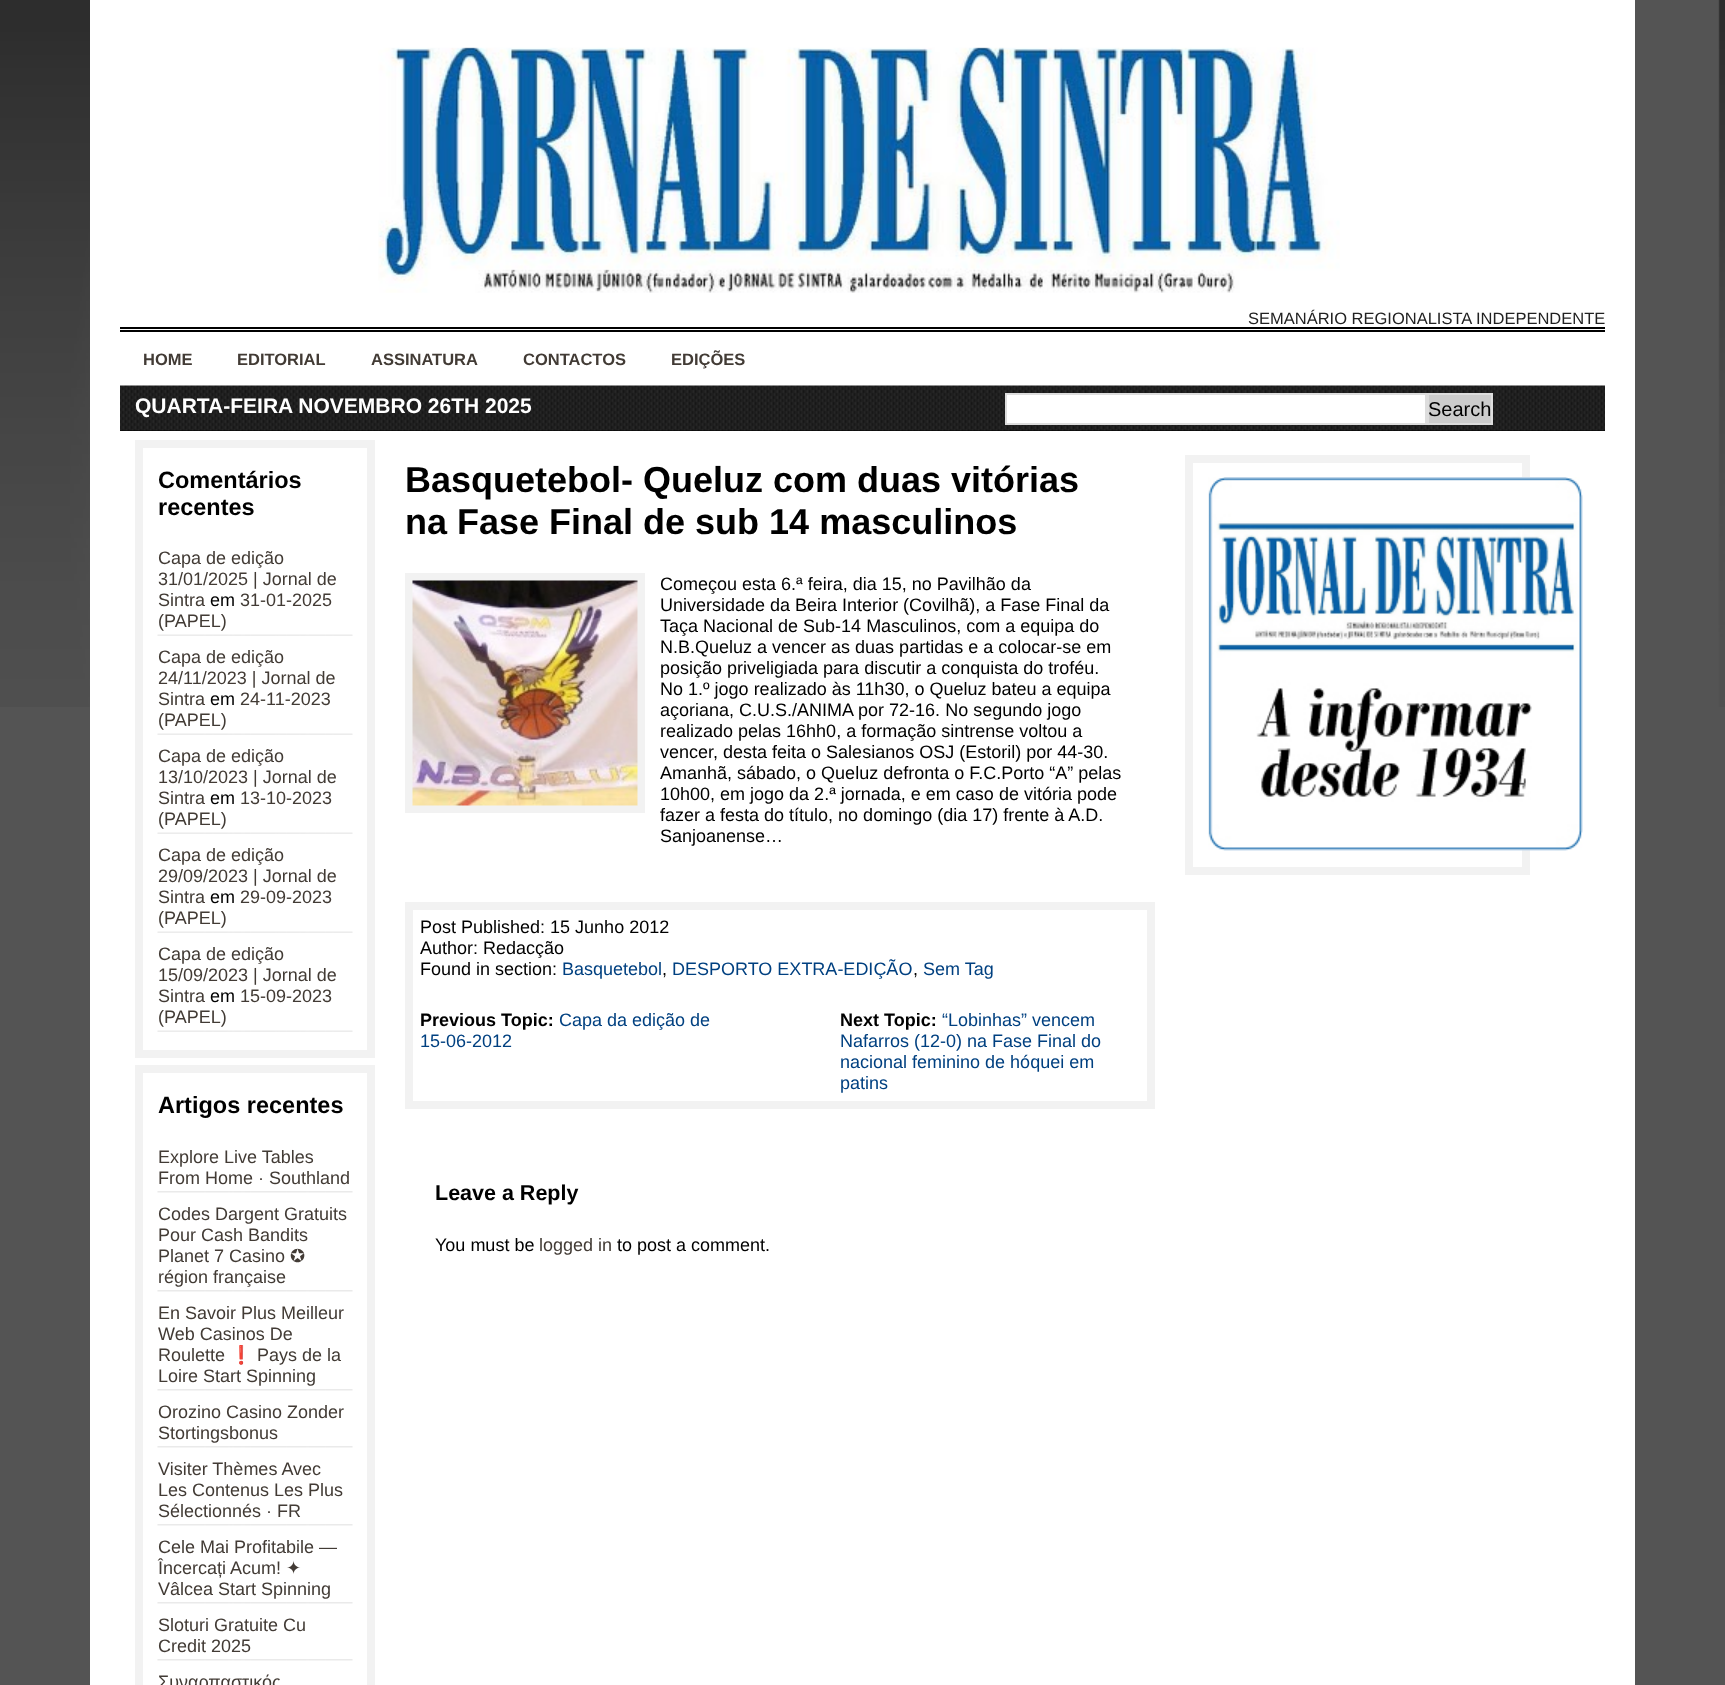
(async () => {
const canvas = document.querySelector("canvas")
canvas.width = 1725
canvas.height = 1685
const c = canvas.getContext("2d")
c.miterLimit = 4
c.fontKerning = "normal"
function T(s,x,y){c.fillText(s,x,y)}
function R(x,y,w,h){c.fillRect(x,y,w,h)}
async function I(src,x,y,w,h){const img=new Image();img.src=src;await img.decode();c.drawImage(img,x,y,w,h)}
c.fillStyle="#545454"
R(0,0,1725,1685)
await I("1.png",0,0,1725,707)
c.fillStyle="#fff"
R(90,0,1545,1685)
await I("2.png",378,47,962,246)
c.font="16.5px Liberation Sans"
c.fillStyle="#212121"
T("SEMANÁRIO REGIONALISTA INDEPENDENTE",1248,324)
c.fillStyle="#000"
R(120,327,1485,2)
R(120,330,1485,2)
c.font="bold 16.5px Liberation Sans"
c.fillStyle="#423b35"
T("HOME",143,365)
T("EDITORIAL",237,365)
T("ASSINATURA",371,365)
T("CONTACTOS",523,365)
T("EDIÇÕES",671,365)
c.fillStyle="#000"
R(120,430,1485,1)
await I("3.png",120,385,1485,46)
c.font="bold 21px Liberation Sans"
c.fillStyle="#fff"
T("QUARTA-FEIRA NOVEMBRO 26TH 2025",135,413)
c.beginPath()
c.rect(1006,394,420,30)
c.fill()
c.strokeStyle="#ddd"
c.lineWidth=2
c.stroke()
c.fillStyle="#ccc"
c.beginPath()
c.rect(1428,394,64,30)
c.fill()
c.stroke()
c.font="20px Liberation Sans"
c.fillStyle="#000"
T("Search",1428,416)
c.strokeStyle="#f2f2f2"
c.lineWidth=8
c.strokeRect(139,444,232,610)
c.font="bold 23.5px Liberation Sans"
T("Comentários",158,488)
T("recentes",158,515)
await I("4.png",157,634,196,2)
c.font="18px Liberation Sans"
c.fillStyle="#423b35"
T("Capa de edição",158,564)
T("31/01/2025 | Jornal de",158,585)
T("Sintra",158,606)
c.fillStyle="#000"
T("em",210,606)
c.fillStyle="#423b35"
T("31-01-2025",240,606)
T("(PAPEL)",158,627)
await I("4.png",157,733,196,2)
T("Capa de edição",158,663)
T("24/11/2023 | Jornal de",158,684)
T("Sintra",158,705)
c.fillStyle="#000"
T("em",210,705)
c.fillStyle="#423b35"
T("24-11-2023",240,705)
T("(PAPEL)",158,726)
await I("4.png",157,832,196,2)
T("Capa de edição",158,762)
T("13/10/2023 | Jornal de",158,783)
T("Sintra",158,804)
c.fillStyle="#000"
T("em",210,804)
c.fillStyle="#423b35"
T("13-10-2023",240,804)
T("(PAPEL)",158,825)
await I("4.png",157,931,196,2)
T("Capa de edição",158,861)
T("29/09/2023 | Jornal de",158,882)
T("Sintra",158,903)
c.fillStyle="#000"
T("em",210,903)
c.fillStyle="#423b35"
T("29-09-2023",240,903)
T("(PAPEL)",158,924)
await I("4.png",157,1030,196,2)
T("Capa de edição",158,960)
T("15/09/2023 | Jornal de",158,981)
T("Sintra",158,1002)
c.fillStyle="#000"
T("em",210,1002)
c.fillStyle="#423b35"
T("15-09-2023",240,1002)
T("(PAPEL)",158,1023)
c.strokeRect(139,1069,232,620)
c.font="bold 23.5px Liberation Sans"
c.fillStyle="#000"
T("Artigos recentes",158,1113)
await I("5.png",157,1191,196,2)
c.font="18px Liberation Sans"
c.fillStyle="#423b35"
T("Explore Live Tables",158,1163)
T("From Home · Southland",158,1184)
await I("5.png",157,1290,196,2)
T("Codes Dargent Gratuits",158,1220)
T("Pour Cash Bandits",158,1241)
T("Planet 7 Casino",158,1262)
c.font="18px DejaVu Sans"
T("✪",290,1262)
c.font="18px Liberation Sans"
T("région française",158,1283)
await I("5.png",157,1389,196,2)
T("En Savoir Plus Meilleur",158,1319)
T("Web Casinos De",158,1340)
T("Roulette",158,1361)
c.font="18px Noto Color Emoji"
T("❗️",230,1361)
c.font="18px Liberation Sans"
T("Pays de la",257,1361)
T("Loire Start Spinning",158,1382)
await I("5.png",157,1446,196,2)
T("Orozino Casino Zonder",158,1418)
T("Stortingsbonus",158,1439)
await I("5.png",157,1524,196,2)
T("Visiter Thèmes Avec",158,1475)
T("Les Contenus Les Plus",158,1496)
T("Sélectionnés · FR",158,1517)
await I("5.png",157,1602,196,2)
T("Cele Mai Profitabile —",158,1553)
T("Încercați Acum!",158,1574)
c.font="18px DejaVu Sans"
T("✦",286,1574)
c.font="18px Liberation Sans"
T("Vâlcea Start Spinning",158,1595)
await I("5.png",157,1659,196,2)
T("Sloturi Gratuite Cu",158,1631)
T("Credit 2025",158,1652)
T("Συναρπαστικός",158,1688)
c.font="bold 36px Liberation Sans"
c.fillStyle="#000"
T("Basquetebol- Queluz com duas vitórias",405,492)
T("na Fase Final de sub 14 masculinos",405,534)
c.fillStyle="#f2f2f2"
R(405,573,240,240)
await I("6.png",412,580,226,226)
c.font="18px Liberation Sans"
c.fillStyle="#000"
T("Começou esta 6.ª feira, dia 15, no Pavilhão da",660,590)
T("Universidade da Beira Interior (Covilhã), a Fase Final da",660,611)
T("Taça Nacional de Sub-14 Masculinos, com a equipa do",660,632)
T("N.B.Queluz a vencer as duas partidas e a colocar-se em",660,653)
T("posição priveligiada para discutir a conquista do troféu.",660,674)
T("No 1.º jogo realizado às 11h30, o Queluz bateu a equipa",660,695)
T("açoriana, C.U.S./ANIMA por 72-16. No segundo jogo",660,716)
T("realizado pelas 16hh0, a formação sintrense voltou a",660,737)
T("vencer, desta feita o Salesianos OSJ (Estoril) por 44-30.",660,758)
T("Amanhã, sábado, o Queluz defronta o F.C.Porto “A” pelas",660,779)
T("10h00, em jogo da 2.ª jornada, e em caso de vitória pode",660,800)
T("fazer a festa do título, no domingo (dia 17) frente à A.D.",660,821)
T("Sanjoanense…",660,842)
c.strokeRect(409,906,742,199)
T("Post Published: 15 Junho 2012",420,933)
T("Author: Redacção",420,954)
T("Found in section:",420,975)
c.fillStyle="#004080"
T("Basquetebol",562,975)
c.fillStyle="#000"
T(",",662,975)
c.fillStyle="#004080"
T("DESPORTO EXTRA-EDIÇÃO",672,975)
c.fillStyle="#000"
T(",",913,975)
c.fillStyle="#004080"
T("Sem Tag",923,975)
c.font="bold 18px Liberation Sans"
c.fillStyle="#000"
T("Previous Topic:",420,1026)
c.font="18px Liberation Sans"
c.fillStyle="#004080"
T("Capa da edição de",559,1026)
T("15-06-2012",420,1047)
c.font="bold 18px Liberation Sans"
c.fillStyle="#000"
T("Next Topic:",840,1026)
c.font="18px Liberation Sans"
c.fillStyle="#004080"
T("“Lobinhas” vencem",942,1026)
T("Nafarros (12-0) na Fase Final do",840,1047)
T("nacional feminino de hóquei em",840,1068)
T("patins",840,1089)
c.font="bold 21.5px Liberation Sans"
c.fillStyle="#000"
T("Leave a Reply",435,1200)
c.font="18px Liberation Sans"
T("You must be",435,1251)
c.fillStyle="#423b35"
T("logged in",539,1251)
c.fillStyle="#000"
T("to post a comment.",617,1251)
c.strokeRect(1189,459,337,412)
await I("7.png",1208,477,375,374)
})()
